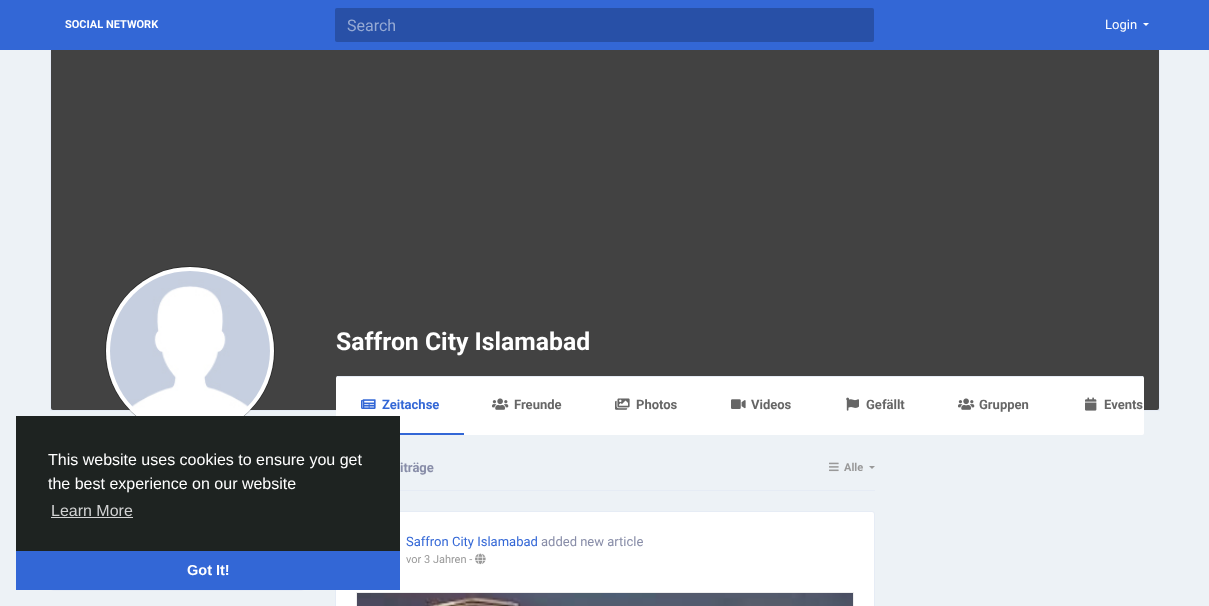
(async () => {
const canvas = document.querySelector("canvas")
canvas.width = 1209
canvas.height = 606
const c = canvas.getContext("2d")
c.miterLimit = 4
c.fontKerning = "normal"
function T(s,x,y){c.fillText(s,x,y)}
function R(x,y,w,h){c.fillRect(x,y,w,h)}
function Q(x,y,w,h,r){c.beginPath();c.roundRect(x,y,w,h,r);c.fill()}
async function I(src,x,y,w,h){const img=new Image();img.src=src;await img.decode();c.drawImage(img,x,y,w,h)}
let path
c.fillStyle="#edf2f6"
R(0,0,1209,606)
c.fillStyle="#3367d6"
R(0,0,1209,50)
c.font="bold 11px Roboto"
c.fillStyle="#fff"
T("SOCIAL NETWORK",65,28)
c.fillStyle="#2850a7"
Q(335,8,539,34,2)
c.font="16px Roboto"
c.fillStyle="#96aad4"
T("Search",347,31)
c.font="13px Roboto"
c.fillStyle="#fff"
T("Login",1105,29)
path = new Path2D("M1143 23h6l-3 3z")
c.fill(path)
c.fillStyle="#e6ecf5"
R(1159,50,1,361)
R(50,410,1110,1)
R(50,50,1,361)
c.fillStyle="#424242"
c.beginPath()
c.roundRect(51,50,1108,360,[0,0,2,2])
c.fill()
c.beginPath()
c.arc(190,351,84.5,0,7)
c.strokeStyle="#0000004d"
c.stroke()
c.fillStyle="#fff"
c.beginPath()
c.arc(190,351,84,0,7)
c.fill()
await I("1.png",110,271,160,145)
c.font="bold 24.75px Roboto"
T("Saffron City Islamabad",336,350)
Q(336,376,808,59,2)
c.fillStyle="#e6ecf5"
R(337,376,806,1)
c.fillStyle="#3367d6"
R(400,433,64,2)
await I("2.png",361,399,15,10)
c.font="bold 13px Roboto"
T("Zeitachse",382,409)
await I("3.png",492,398,17,12)
c.fillStyle="#666"
T("Freunde",514,409)
await I("4.png",615,398,15,12)
T("Photos",636,409)
await I("5.png",731,399,15,10)
T("Videos",751,409)
await I("6.png",846,397,13,14)
T("Gefällt",866,409)
await I("3.png",958,398,17,12)
T("Gruppen",979,409)
await I("7.png",1085,397,12,14)
T("Events",1104,409)
c.beginPath()
c.roundRect(50.5,451.5,254,139,3.5)
c.strokeStyle="#e6ecf5"
c.stroke()
c.fillStyle="#e6ecf5"
R(400,490,475,1)
c.fillStyle="#888da8"
T("iträge",400,472)
await I("8.png",829,462,10,10)
c.font="bold 11px Roboto"
c.fillStyle="#999"
T("Alle",844,471)
path = new Path2D("M869 466h6l-3 3z")
c.fill(path)
c.fillStyle="#fff"
c.beginPath()
c.roundRect(335.5,511.5,539,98,2.5)
c.fill()
c.stroke()
c.font="13px Roboto"
c.fillStyle="#3367d6"
T("Saffron City Islamabad",406,546)
c.fillStyle="#888da8"
T("added new article",541,546)
c.font="11px Roboto"
c.fillStyle="#999"
T("vor 3 Jahren -",406,563)
await I("9.png",475,553,11,12)
c.strokeStyle="#eee"
c.strokeRect(356.5,592.5,497,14)
await I("10.png",357,593,496,13)
c.fillStyle="#1e2321"
R(16,416,384,135)
c.font="16px Liberation Sans"
c.fillStyle="#fff"
T("This website uses cookies to ensure you get",48,465)
T("the best experience on our website",48,489)
c.fillStyle="#d2d3d3"
T("Learn More",51,516)
R(51,517,82,1)
c.fillStyle="#3367d6"
R(16,551,384,39)
c.font="bold 14.5px Liberation Sans"
c.fillStyle="#fff"
T("Got It!",187,575)
})()
